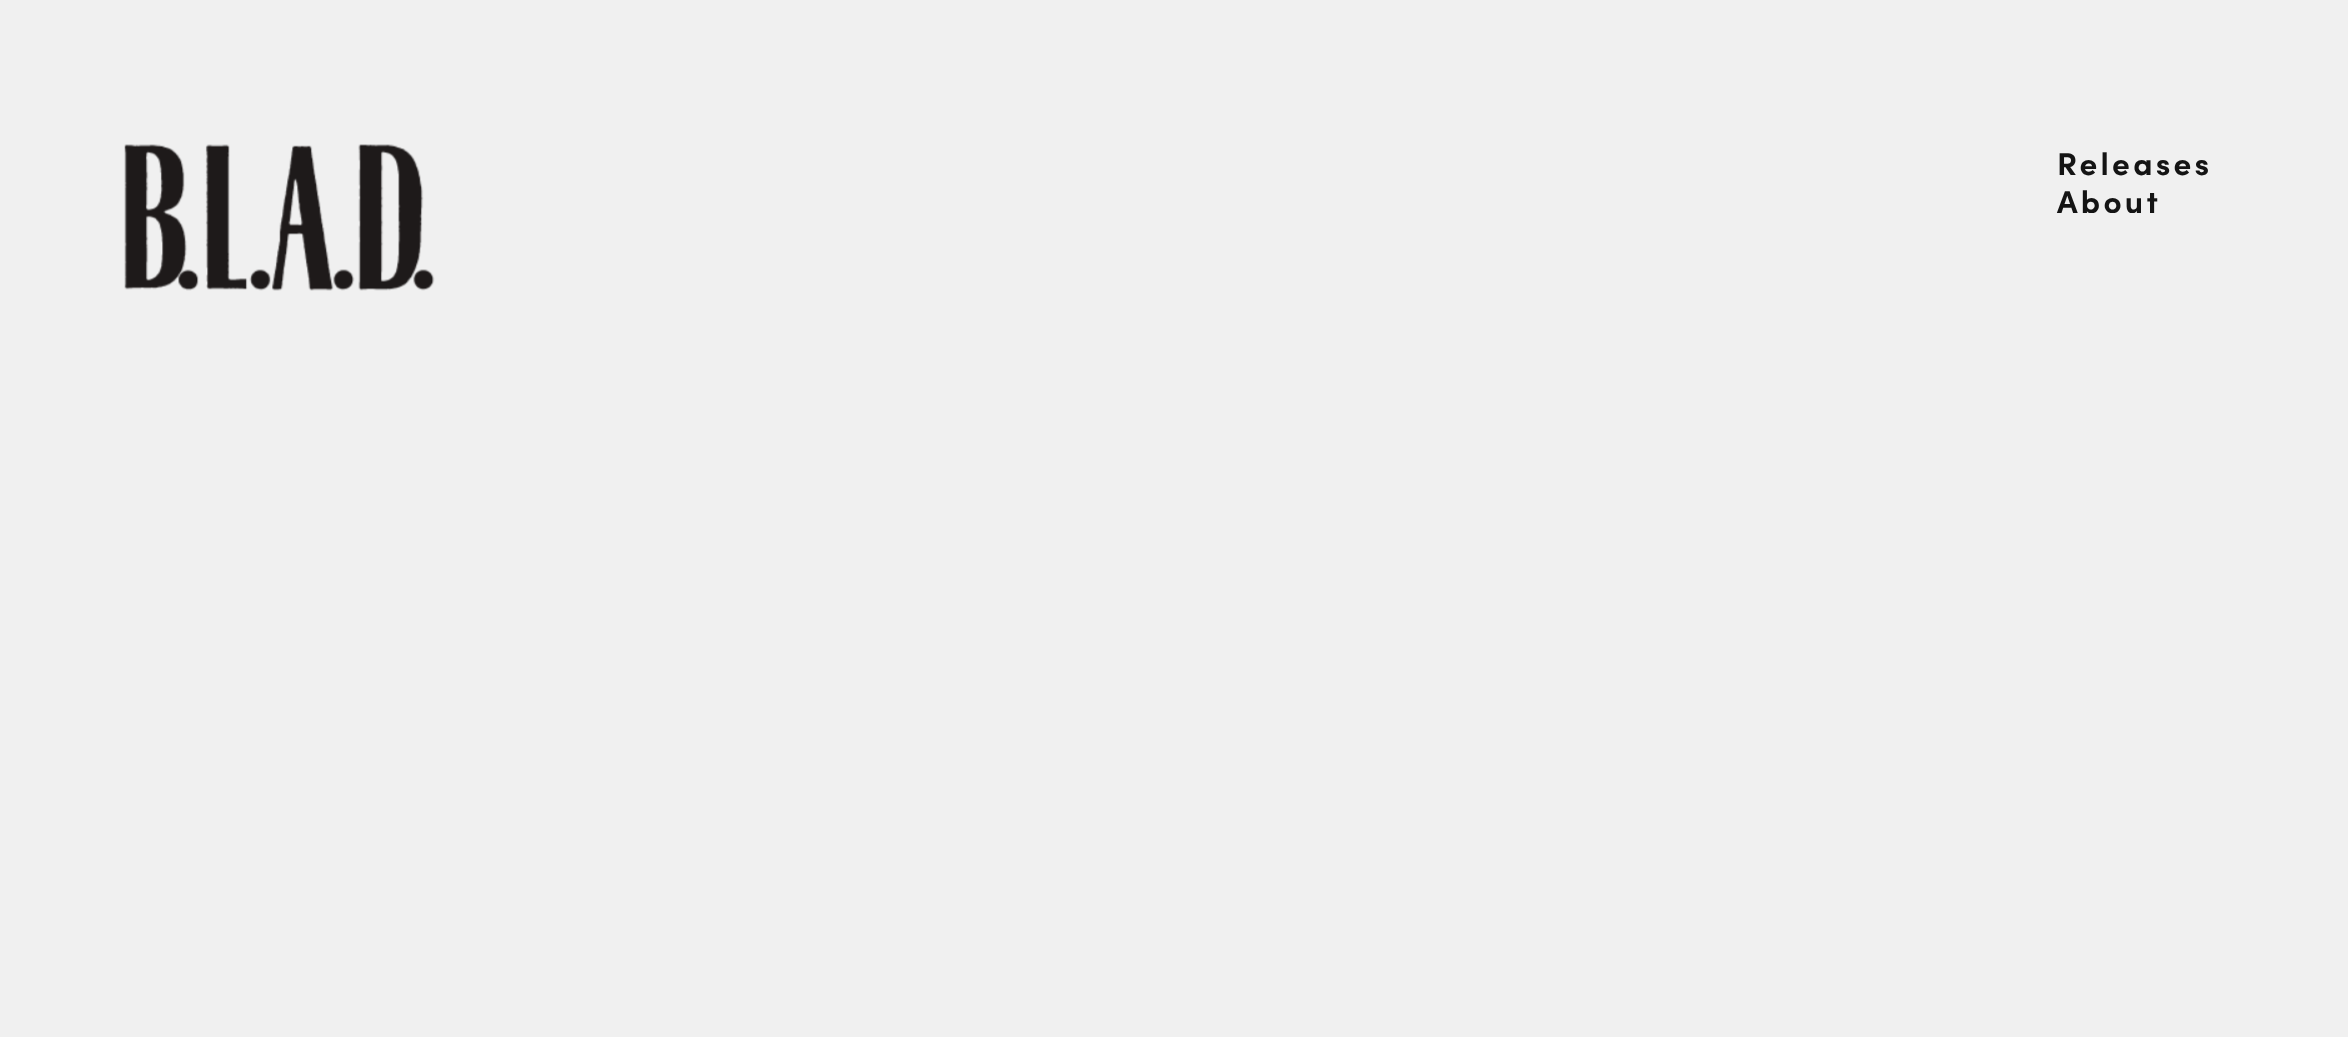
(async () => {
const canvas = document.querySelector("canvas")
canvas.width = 2348
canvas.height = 1037
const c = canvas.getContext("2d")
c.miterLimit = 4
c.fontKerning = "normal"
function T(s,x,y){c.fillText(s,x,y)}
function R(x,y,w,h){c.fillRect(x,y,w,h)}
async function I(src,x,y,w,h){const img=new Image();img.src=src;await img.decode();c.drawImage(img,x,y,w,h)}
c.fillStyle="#f0f0f0"
R(0,0,2348,1037)
await I("1.png",124,144,311,147)
c.letterSpacing="3.25px"
c.font="bold 31.5px Sofia"
c.fillStyle="#141414"
T("Releases",2057,175)
c.save()
c.beginPath()
c.rect(2040,138,191,75)
c.clip()
T("About",2057,213)
c.restore()
})()
